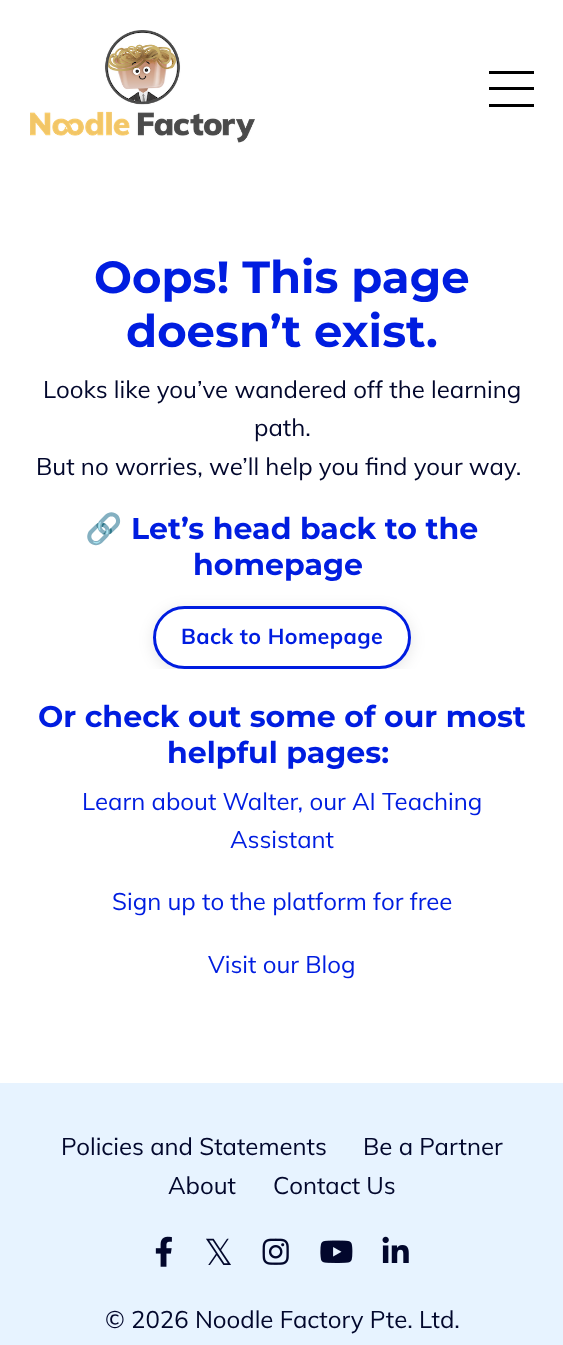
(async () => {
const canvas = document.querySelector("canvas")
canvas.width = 563
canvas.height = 1345
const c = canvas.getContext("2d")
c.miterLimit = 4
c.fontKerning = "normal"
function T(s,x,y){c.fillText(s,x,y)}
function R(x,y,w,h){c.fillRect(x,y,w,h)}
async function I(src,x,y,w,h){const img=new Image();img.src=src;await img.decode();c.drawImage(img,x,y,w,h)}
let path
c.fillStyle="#fff"
R(0,0,563,1345)
await I("1.png",30,30,225,113)
c.fillStyle="#000"
R(489,71,45,3)
R(489,87,45,3)
R(489,104,45,3)
c.font="bold 45px Montserrat"
c.fillStyle="#001de0"
T("Oops! This page",94,293)
T("doesn’t exist.",126,347)
c.font="24px Muli"
c.fillStyle="#02072c"
T("Looks like you’ve wandered off the learning",43,398)
T("path.",254,436)
T("But no worries, we’ll help you find your way.",36,475)
c.font="bold 30px Noto Color Emoji"
c.fillStyle="#001de0"
T("🔗",85,539)
c.font="bold 30px Montserrat"
T("Let’s head back to the",131,539)
T("homepage",193,575)
c.save()
c.beginPath()
c.roundRect(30,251,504,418,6)
c.clip()
path = new Path2D("M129 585h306v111h-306zm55.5 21h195c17.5 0 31.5 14 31.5 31.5c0 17.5-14 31.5-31.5 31.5h-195c-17.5 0-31.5-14-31.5-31.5c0-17.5 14-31.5 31.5-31.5z")
c.clip(path,"evenodd")
c.fillStyle="#0000001a"
c.filter="blur(7.5px)"
c.beginPath()
c.roundRect(153,609,258,63,31.5)
c.fill()
c.filter="none"
c.restore()
c.beginPath()
c.roundRect(154.5,607.5,255,60,30)
c.strokeStyle="#001de0"
c.lineWidth=3
c.stroke()
c.letterSpacing="0.4px"
c.font="bold 21.5px Muli"
T("Back to Homepage",181,644)
c.letterSpacing="0px"
c.font="bold 30px Montserrat"
T("Or check out some of our most",38,727)
T("helpful pages:",167,763)
c.font="24px Muli"
T("Learn about Walter, our AI Teaching",82,810)
T("Assistant",230,848)
T("Sign up to the platform for free",112,910)
T("Visit our Blog",208,973)
c.fillStyle="#e7f3ff"
R(0,1083,563,262)
c.fillStyle="#02072c"
T("Policies and Statements",61,1155)
T("Be a Partner",363,1155)
T("About",168,1194)
T("Contact Us",273,1194)
await I("2.png",155,1236,17,31)
c.font="36px DejaVu Sans"
T("𝕏",204,1265)
await I("3.png",262,1238,27,27)
await I("4.png",320,1240,33,23)
await I("5.png",382,1236,27,27)
c.font="24px Muli"
T("© 2026 Noodle Factory Pte. Ltd.",105,1328)
})()
